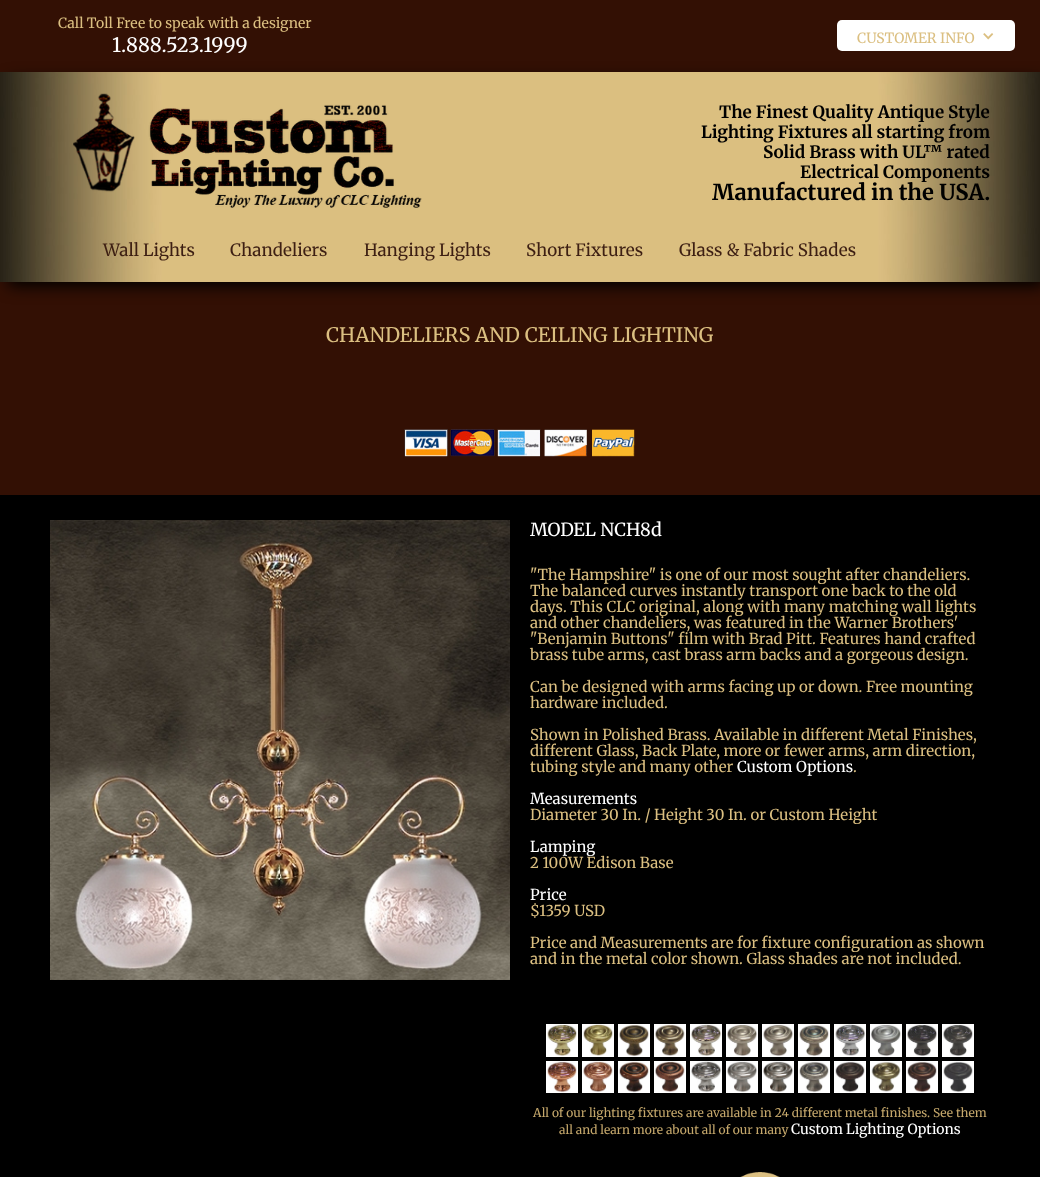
(async () => {
const canvas = document.querySelector("canvas")
canvas.width = 1040
canvas.height = 1177
const c = canvas.getContext("2d")
c.miterLimit = 4
c.fontKerning = "normal"
function T(s,x,y){c.fillText(s,x,y)}
function R(x,y,w,h){c.fillRect(x,y,w,h)}
function Q(x,y,w,h,r){c.beginPath();c.roundRect(x,y,w,h,r);c.fill()}
async function I(src,x,y,w,h){const img=new Image();img.src=src;await img.decode();c.drawImage(img,x,y,w,h)}
c.fillStyle="#331004"
R(0,0,1040,1177)
c.font="14px Merriweather"
c.fillStyle="#dbbf81"
T("Call Toll Free to speak with a designer",58,28)
c.font="20px Merriweather"
c.fillStyle="#fff"
T("1.888.523.1999",112,52)
Q(837,20,178,31,5)
c.font="14px Merriweather"
c.fillStyle="#dbbf81"
T("CUSTOMER INFO",857,43)
await I("1.png",983,33,11,7)
c.fillStyle="#000"
c.filter="blur(8px)"
c.beginPath()
c.rect(8,80,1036,206)
c.fill()
c.filter="none"
await I("2.png",0,72,1040,210)
await I("3.png",73,93,349,115)
c.font="bold 17px Merriweather"
T("The Finest Quality Antique Style",719,118)
T("Lighting Fixtures all starting from",701,138)
T("Solid Brass with UL™ rated",763,158)
T("Electrical Components",800,178)
c.font="bold 22px Merriweather"
T("Manufactured in the USA.",712,200)
c.font="17px Merriweather"
c.fillStyle="#3d1f13"
T("Wall Lights",103,256)
T("Chandeliers",230,256)
T("Hanging Lights",364,256)
T("Short Fixtures",526,256)
T("Glass & Fabric Shades",679,256)
c.font="20px Merriweather"
c.fillStyle="#dbbf81"
T("CHANDELIERS AND CEILING LIGHTING",326,342)
await I("4.png",404,429,231,28)
c.fillStyle="#000"
R(0,495,1040,682)
await I("5.png",50,520,460,460)
c.font="18px Merriweather"
c.fillStyle="#fff"
T("MODEL NCH8d",530,536)
c.font="15px Merriweather"
c.fillStyle="#dbbf81"
T("\"The Hampshire\" is one of our most sought after chandeliers.",530,580)
T("The balanced curves instantly transport one back to the old",530,596)
T("days. This CLC original, along with many matching wall lights",530,612)
T("and other chandeliers, was featured in the Warner Brothers'",530,628)
T("\"Benjamin Buttons\" film with Brad Pitt. Features hand crafted",530,644)
T("brass tube arms, cast brass arm backs and a gorgeous design.",530,660)
T("Can be designed with arms facing up or down. Free mounting",530,692)
T("hardware included.",530,708)
T("Shown in Polished Brass. Available in different Metal Finishes,",530,740)
T("different Glass, Back Plate, more or fewer arms, arm direction,",530,756)
T("tubing style and many other",530,772)
c.fillStyle="#fff"
T("Custom Options",737,772)
c.fillStyle="#dbbf81"
T(".",853,772)
c.fillStyle="#fff"
T("Measurements",530,804)
c.fillStyle="#dbbf81"
T("Diameter 30 In. / Height 30 In. or Custom Height",530,820)
c.fillStyle="#fff"
T("Lamping",530,852)
c.fillStyle="#dbbf81"
T("2 100W Edison Base",530,868)
c.fillStyle="#fff"
T("Price",530,900)
c.fillStyle="#dbbf81"
T("$1359 USD",530,916)
T("Price and Measurements are for fixture configuration as shown",530,948)
T("and in the metal color shown. Glass shades are not included.",530,964)
await I("6.png",546,1024,32,33)
await I("7.png",582,1024,32,33)
await I("8.png",618,1024,32,33)
await I("9.png",654,1024,32,33)
await I("10.png",690,1024,32,33)
await I("11.png",726,1024,32,33)
await I("12.png",762,1024,32,33)
await I("13.png",798,1024,32,33)
await I("14.png",834,1024,32,33)
await I("15.png",870,1024,32,33)
await I("16.png",906,1024,32,33)
await I("17.png",942,1024,32,33)
await I("18.png",546,1061,32,32)
await I("19.png",582,1061,32,32)
await I("20.png",618,1061,32,32)
await I("21.png",654,1061,32,32)
await I("22.png",690,1061,32,32)
await I("23.png",726,1061,32,32)
await I("24.png",762,1061,32,32)
await I("25.png",798,1061,32,32)
await I("26.png",834,1061,32,32)
await I("27.png",870,1061,32,32)
await I("28.png",906,1061,32,32)
await I("29.png",942,1061,32,32)
c.font="12px Merriweather"
c.fillStyle="#c4a76b"
T("All of our lighting fixtures are available in 24 different metal finishes. See them",533,1117)
T("all and learn more about all of our many",559,1134)
c.font="14px Merriweather"
c.fillStyle="#fff"
T("Custom Lighting Options",791,1134)
await I("30.png",740,1172,40,5)
})()
